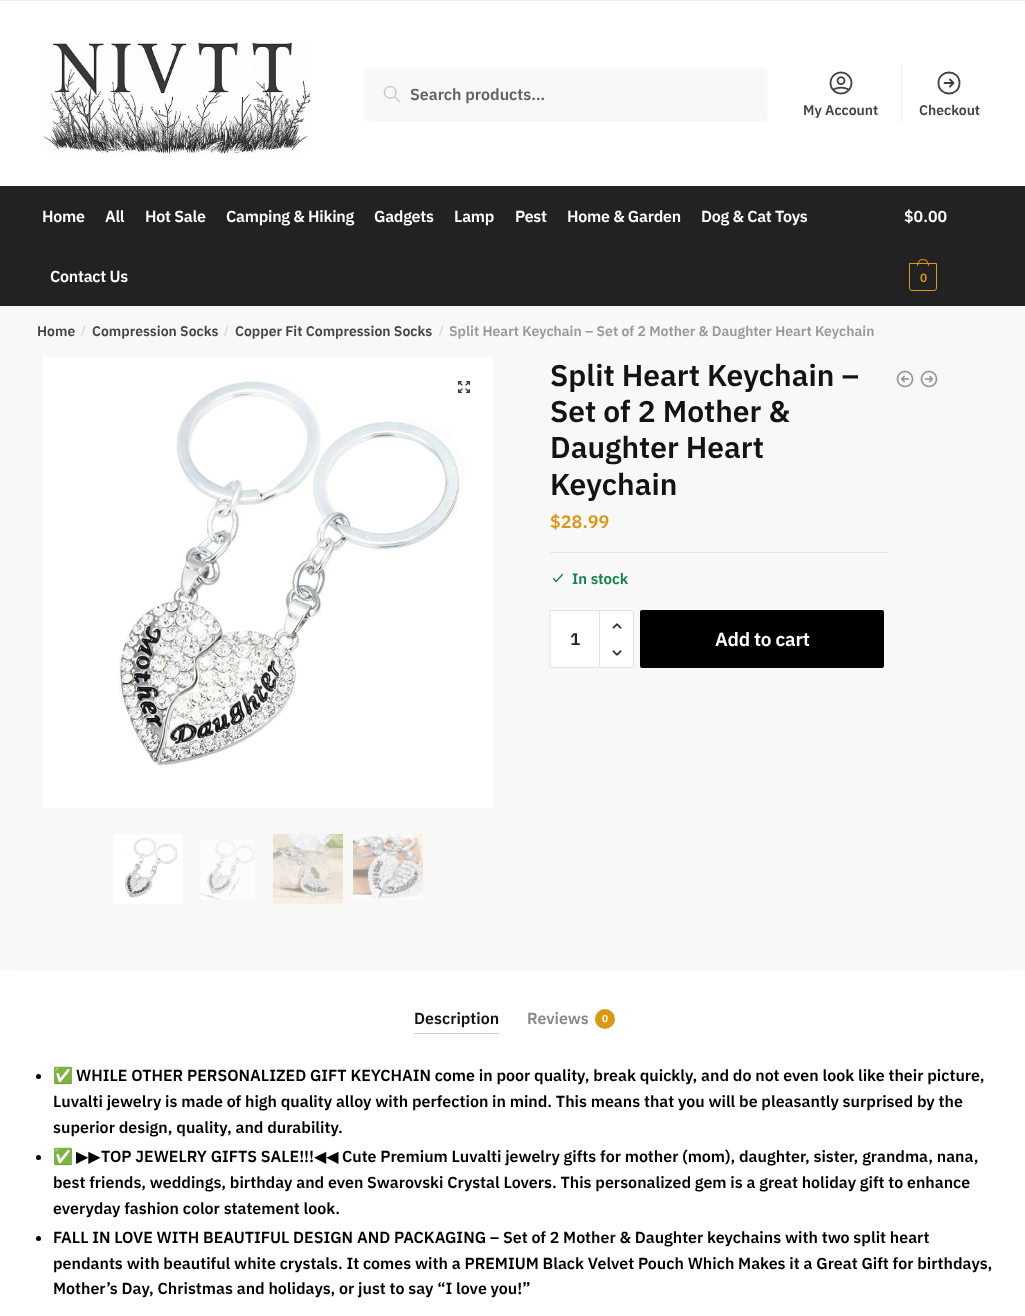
(async () => {
const canvas = document.querySelector("canvas")
canvas.width = 1025
canvas.height = 1316
const c = canvas.getContext("2d")
c.miterLimit = 4
c.fontKerning = "normal"
function T(s,x,y){c.fillText(s,x,y)}
function R(x,y,w,h){c.fillRect(x,y,w,h)}
function Q(x,y,w,h,r){c.beginPath();c.roundRect(x,y,w,h,r);c.fill()}
async function I(src,x,y,w,h){const img=new Image();img.src=src;await img.decode();c.drawImage(img,x,y,w,h)}
let path
c.fillStyle="#fff"
R(0,0,1025,1316)
c.fillStyle="#eee"
R(0,0,1025,1)
await I("1.png",43,42,267,112)
c.fillStyle="#0000000d"
c.filter="blur(1px)"
c.beginPath()
c.roundRect(365,69,402,52,4)
c.fill()
c.filter="none"
c.fillStyle="#f8f8f8"
Q(365,68,402,52,4)
path = new Path2D("M399.5 101.5l-5-5m1.5-4c0 7.5-11.5 7.5-11.5 0c0-8 11.5-8 11.5 0z")
c.strokeStyle="#ccc"
c.lineWidth=1.7
c.lineCap="round"
c.lineJoin="round"
c.stroke(path)
c.font="600 16px IBM Plex Sans"
c.fillStyle="#616161"
T("Search products…",410,100)
await I("2.png",829,71,24,24)
c.font="600 14px IBM Plex Sans"
c.fillStyle="#444"
T("My Account",803,115)
c.fillStyle="#eee"
R(901,64,1,58)
path = new Path2D("M950 79.5l3.5 3.5m0 0l-3.5 3.5m3.5-3.5h-9m15 0c0 14-21 14-21 0c0-14 21-14 21 0z")
c.strokeStyle="#404040"
c.lineWidth=1.8
c.stroke(path)
c.fillStyle="#444"
T("Checkout",919,115)
c.fillStyle="#222"
R(0,186,1025,120)
c.letterSpacing="-0.25px"
c.font="600 16px IBM Plex Sans"
c.fillStyle="#fff"
T("Home",42,222)
T("All",105,222)
T("Hot Sale",145,222)
T("Camping & Hiking",226,222)
T("Gadgets",374,222)
T("Lamp",454,222)
T("Pest",515,222)
T("Home & Garden",567,222)
T("Dog & Cat Toys",701,222)
T("Contact Us",50,282)
c.letterSpacing="0px"
T("$0.00",904,222)
c.beginPath()
c.roundRect(909.5,263.5,27,27,[0,0,2.5,2.5])
c.strokeStyle="#dc9814"
c.lineWidth=1
c.lineJoin="miter"
c.stroke()
c.fillStyle="#dc9814"
path = new Path2D("M923 259c4 0 6 3.5 6 7h-12c0-3.5 2-7 6-7zm0 1c3.5 0 5 3 5 6h-10c0-3 1.5-6 5-6z")
c.fill(path,"evenodd")
c.letterSpacing="-1px"
c.font="600 12px IBM Plex Sans"
T("0",920,282)
c.fillStyle="#f8f8f8"
R(0,306,1025,664)
c.letterSpacing="0px"
c.font="600 14px IBM Plex Sans"
c.fillStyle="#444"
T("Home",37,336)
c.font="600 11px IBM Plex Sans"
c.fillStyle="#d2d2d2"
T("/",81,334)
c.font="600 14px IBM Plex Sans"
c.fillStyle="#444"
T("Compression Socks",92,336)
c.font="600 11px IBM Plex Sans"
c.fillStyle="#d2d2d2"
T("/",224,334)
c.font="600 14px IBM Plex Sans"
c.fillStyle="#444"
T("Copper Fit Compression Socks",235,336)
c.font="600 11px IBM Plex Sans"
c.fillStyle="#d2d2d2"
T("/",439,334)
c.font="600 14px IBM Plex Sans"
c.fillStyle="#999"
T("Split Heart Keychain – Set of 2 Mother & Daughter Heart Keychain",449,336)
await I("3.png",42,357,452,451)
await I("4.png",458,381,12,12)
await I("5.png",113,834,70,70)
await I("6.png",200,840,55,60)
await I("7.png",273,834,70,70)
await I("8.png",353,834,70,66)
c.font="600 30px IBM Plex Sans"
c.fillStyle="#131315"
T("Split Heart Keychain –",550,386)
T("Set of 2 Mother &",550,422)
T("Daughter Heart",550,458)
T("Keychain",550,495)
await I("9.png",896,370,18,18)
await I("10.png",920,370,18,18)
c.font="600 18px IBM Plex Sans"
c.fillStyle="#dc9814"
T("$28.99",550,528)
c.fillStyle="#e2e2e2"
R(550,552,339,1)
path = new Path2D("M553.5 578.5l2.5 3l6.5-7")
c.strokeStyle="#0f834d"
c.lineWidth=1.3
c.lineJoin="round"
c.stroke(path)
c.font="600 15px IBM Plex Sans"
c.fillStyle="#0f834d"
T("In stock",572,584)
c.fillStyle="#fff"
c.beginPath()
c.rect(550.5,610.5,49,57)
c.fill()
c.strokeStyle="#e2e2e2"
c.lineWidth=1
c.lineJoin="miter"
c.stroke()
c.font="600 17px IBM Plex Sans"
c.fillStyle="#222"
T("1",570,645)
c.fillStyle="#fff"
c.beginPath()
c.roundRect(599.5,610.5,34,57,[0,1.5,1.5,0])
c.fill()
c.stroke()
await I("11.png",612,623,10,6)
R(632,666,1,1)
await I("12.png",612,650,10,6)
c.fillStyle="#000"
Q(640,610,244,58,2)
c.letterSpacing="-0.25px"
c.font="600 19px IBM Plex Sans"
c.fillStyle="#fff"
T("Add to cart",715,646)
path = new Path2D("M756.5 633.5c1.5-2 4-3 6.5-3c11.5 0 13 16.5 2 19c-3 .5-6.5-.5-8.5-3")
c.strokeStyle="#000"
c.lineCap="butt"
c.stroke(path)
c.fillStyle="#f8f8f8"
R(16,970,993,1)
c.letterSpacing="0px"
c.font="600 16px IBM Plex Sans"
c.fillStyle="#131315"
T("Description",414,1024)
c.fillStyle="#ccc"
R(414,1033,85,1)
c.fillStyle="#888"
T("Reviews",527,1024)
c.fillStyle="#dc9814"
c.beginPath()
c.arc(605,1019,10,0,7)
c.fill()
c.font="600 10px IBM Plex Sans"
c.fillStyle="#fff"
T("0",602,1022)
c.fillStyle="#000"
c.beginPath()
c.arc(38.5,1076.5,2.5,0,7)
c.fill()
c.font="16px Noto Color Emoji"
T("✅",53,1081)
c.font="600 16px IBM Plex Sans"
T("WHILE OTHER PERSONALIZED GIFT KEYCHAIN come in poor quality, break quickly, and do not even look like their picture,",76,1081)
T("Luvalti jewelry is made of high quality alloy with perfection in mind. This means that you will be pleasantly surprised by the",53,1107)
T("superior design, quality, and durability.",53,1133)
c.beginPath()
c.arc(38.5,1157.5,2.5,0,7)
c.fill()
c.font="16px Noto Color Emoji"
T("✅",53,1162)
c.font="16px DejaVu Sans"
T("▶▶",76,1162)
c.font="600 16px IBM Plex Sans"
T("TOP JEWELRY GIFTS SALE!!!",101,1162)
c.font="16px DejaVu Sans"
T("◀◀",314,1162)
c.font="600 16px IBM Plex Sans"
T("Cute Premium Luvalti jewelry gifts for mother (mom), daughter, sister, grandma, nana,",342,1162)
T("best friends, weddings, birthday and even Swarovski Crystal Lovers. This personalized gem is a great holiday gift to enhance",53,1188)
T("everyday fashion color statement look.",53,1214)
c.beginPath()
c.arc(38.5,1238.5,2.5,0,7)
c.fill()
T("FALL IN LOVE WITH BEAUTIFUL DESIGN AND PACKAGING – Set of 2 Mother & Daughter keychains with two split heart",53,1243)
T("pendants with beautiful white crystals. It comes with a PREMIUM Black Velvet Pouch Which Makes it a Great Gift for birthdays,",53,1269)
T("Mother’s Day, Christmas and holidays, or just to say “I love you!”",53,1294)
})()
